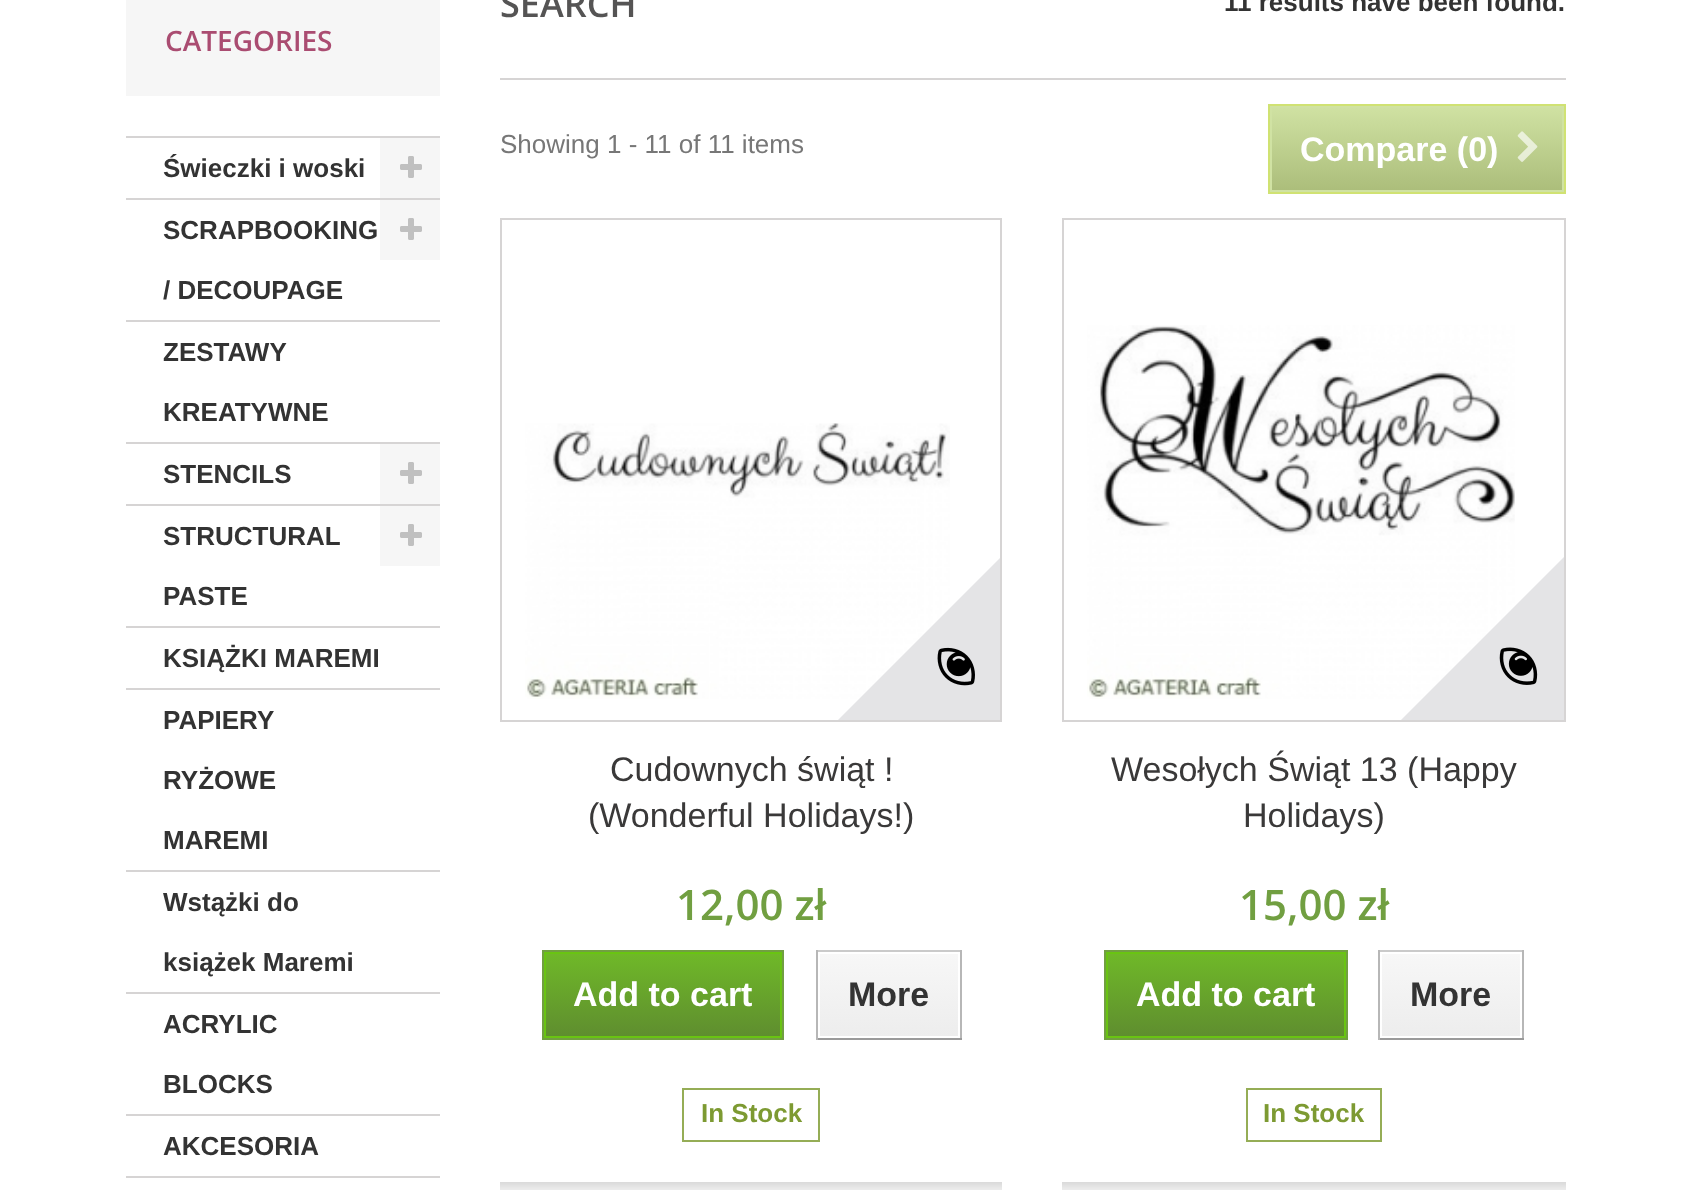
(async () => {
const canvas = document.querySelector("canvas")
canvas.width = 1689
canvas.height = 1190
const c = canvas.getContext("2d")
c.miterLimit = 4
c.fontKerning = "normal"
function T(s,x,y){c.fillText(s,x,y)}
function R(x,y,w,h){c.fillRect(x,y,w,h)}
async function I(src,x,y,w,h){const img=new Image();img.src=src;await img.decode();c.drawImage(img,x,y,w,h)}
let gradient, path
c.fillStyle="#fff"
R(0,0,1689,1190)
c.fillStyle="#f6f6f6"
R(126,0,314,96)
c.font="600 28px Open Sans"
c.fillStyle="#aa4c71"
T("CATEGORIES",165,51)
c.fillStyle="#d6d4d4"
R(126,136,314,2)
R(126,198,314,2)
c.font="bold 26px Liberation Sans"
c.fillStyle="#333"
T("Świeczki i woski",163,177)
c.fillStyle="#f6f6f6"
R(380,138,60,60)
await I("1.png",400,156,22,22)
c.fillStyle="#d6d4d4"
R(126,320,314,2)
c.fillStyle="#333"
T("SCRAPBOOKING",163,239)
T("/ DECOUPAGE",163,299)
c.fillStyle="#f6f6f6"
R(380,200,60,60)
await I("1.png",400,218,22,22)
c.fillStyle="#d6d4d4"
R(126,442,314,2)
c.fillStyle="#333"
T("ZESTAWY",163,361)
T("KREATYWNE",163,421)
c.fillStyle="#d6d4d4"
R(126,504,314,2)
c.fillStyle="#333"
T("STENCILS",163,483)
c.fillStyle="#f6f6f6"
R(380,444,60,60)
await I("1.png",400,462,22,22)
c.fillStyle="#d6d4d4"
R(126,626,314,2)
c.fillStyle="#333"
T("STRUCTURAL",163,545)
T("PASTE",163,605)
c.fillStyle="#f6f6f6"
R(380,506,60,60)
await I("1.png",400,524,22,22)
c.fillStyle="#d6d4d4"
R(126,688,314,2)
c.fillStyle="#333"
T("KSIĄŻKI MAREMI",163,667)
c.fillStyle="#d6d4d4"
R(126,870,314,2)
c.fillStyle="#333"
T("PAPIERY",163,729)
T("RYŻOWE",163,789)
T("MAREMI",163,849)
c.fillStyle="#d6d4d4"
R(126,992,314,2)
c.fillStyle="#333"
T("Wstążki do",163,911)
T("książek Maremi",163,971)
c.fillStyle="#d6d4d4"
R(126,1114,314,2)
c.fillStyle="#333"
T("ACRYLIC",163,1033)
T("BLOCKS",163,1093)
c.fillStyle="#d6d4d4"
R(126,1176,314,2)
c.fillStyle="#333"
T("AKCESORIA",163,1155)
c.font="600 36px Open Sans"
c.fillStyle="#555454"
T("SEARCH",500,17)
c.font="bold 26px Liberation Sans"
c.fillStyle="#333"
T("11 results have been found.",1224,11)
c.fillStyle="#d6d4d4"
R(500,78,1066,2)
c.font="26px Liberation Sans"
c.fillStyle="#777"
T("Showing 1 - 11 of 11 items",500,153)
gradient = c.createLinearGradient(1417,106,1417,192)
gradient.addColorStop(0,"#d0e2a3")
gradient.addColorStop(1,"#abbd7a")
c.fillStyle = gradient
R(1272,108,290,82)
c.strokeStyle="#d0e273"
c.lineWidth=2
c.strokeRect(1269,105,296,88)
c.strokeStyle="#d0e2a3"
c.strokeRect(1271,107,292,84)
c.font="bold 34px Liberation Sans"
c.fillStyle="#fff"
T("Compare (0)",1300,161)
await I("2.png",1517,131,21,31)
c.strokeStyle="#d6d4d4"
c.strokeRect(501,219,500,502)
await I("3.png",525,423,425,276)
c.save()
c.beginPath()
c.rect(570,410,430,310)
c.clip()
c.fillStyle="#e4e4e6"
path = new Path2D("M1011 547l121 120l-184 184l-121-120z")
c.fill(path)
c.restore()
await I("4.png",937,647,38,39)
c.font="34px Liberation Sans"
c.fillStyle="#3a3939"
T("Cudownych świąt !",610,781)
T("(Wonderful Holidays!)",588,827)
c.font="600 42px Open Sans"
c.fillStyle="#719f41"
T("12,00 zł",676,920)
c.strokeStyle="#719f41"
c.strokeRect(543,951,240,88)
gradient = c.createLinearGradient(663,954,663,1036)
gradient.addColorStop(0,"#6fb828")
gradient.addColorStop(1,"#5f8e2f")
c.fillStyle = gradient
R(546,954,234,82)
c.strokeStyle="#69c412"
c.strokeRect(545,953,236,84)
c.font="bold 34px Liberation Sans"
c.fillStyle="#fff"
T("Add to cart",573,1006)
c.fillStyle="#cacaca"
R(816,950,146,2)
c.fillStyle="#b7b7b7"
R(960,950,2,90)
c.fillStyle="#9a9a9a"
R(816,1038,146,2)
c.fillStyle="#b7b7b7"
R(816,950,2,90)
gradient = c.createLinearGradient(889,954,889,1036)
gradient.addColorStop(0,"#f7f7f7")
gradient.addColorStop(1,"#ededed")
c.fillStyle = gradient
R(820,954,138,82)
c.fillStyle="#333"
T("More",848,1006)
c.strokeStyle="#95ad56"
c.strokeRect(683,1089,136,52)
c.font="bold 26px Liberation Sans"
c.fillStyle="#7d9a32"
T("In Stock",701,1122)
await I("5.png",500,1182,502,8)
c.strokeStyle="#d6d4d4"
c.strokeRect(1063,219,502,502)
await I("6.png",1087,325,428,374)
c.save()
c.beginPath()
c.rect(1134,410,430,310)
c.clip()
c.fillStyle="#e4e4e6"
path = new Path2D("M1574 547l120 120l-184 184l-120-120z")
c.fill(path)
c.restore()
await I("7.png",1499,647,39,38)
c.font="34px Liberation Sans"
c.fillStyle="#3a3939"
T("Wesołych Świąt 13 (Happy",1111,781)
T("Holidays)",1243,827)
c.font="600 42px Open Sans"
c.fillStyle="#719f41"
T("15,00 zł",1239,920)
c.strokeStyle="#719f41"
c.strokeRect(1105,951,242,88)
gradient = c.createLinearGradient(1226,954,1226,1036)
gradient.addColorStop(0,"#6fb828")
gradient.addColorStop(1,"#5f8e2f")
c.fillStyle = gradient
R(1108,954,236,82)
c.strokeStyle="#69c412"
c.strokeRect(1107,953,238,84)
c.font="bold 34px Liberation Sans"
c.fillStyle="#fff"
T("Add to cart",1136,1006)
c.fillStyle="#cacaca"
R(1378,950,146,2)
c.fillStyle="#b7b7b7"
R(1522,950,2,90)
c.fillStyle="#9a9a9a"
R(1378,1038,146,2)
c.fillStyle="#b7b7b7"
R(1378,950,2,90)
gradient = c.createLinearGradient(1451,954,1451,1036)
gradient.addColorStop(0,"#f7f7f7")
gradient.addColorStop(1,"#ededed")
c.fillStyle = gradient
R(1382,954,138,82)
c.fillStyle="#333"
T("More",1410,1006)
c.strokeStyle="#95ad56"
c.strokeRect(1247,1089,134,52)
c.font="bold 26px Liberation Sans"
c.fillStyle="#7d9a32"
T("In Stock",1263,1122)
await I("8.png",1062,1182,504,8)
})()
